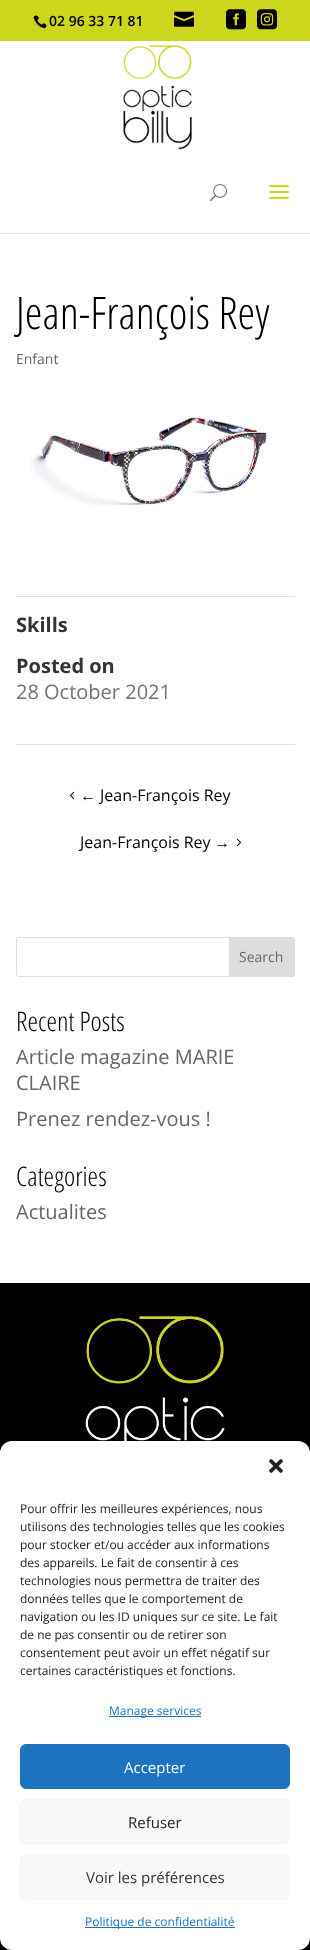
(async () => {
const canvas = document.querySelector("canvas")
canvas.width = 310
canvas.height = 1950
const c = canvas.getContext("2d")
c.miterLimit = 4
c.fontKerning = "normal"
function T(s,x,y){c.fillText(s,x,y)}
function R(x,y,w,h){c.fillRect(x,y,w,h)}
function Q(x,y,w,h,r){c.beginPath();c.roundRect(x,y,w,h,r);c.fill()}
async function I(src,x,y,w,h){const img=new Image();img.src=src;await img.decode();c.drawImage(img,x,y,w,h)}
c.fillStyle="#fff"
R(0,0,310,1950)
c.fillStyle="#ccd61d"
R(0,0,310,41)
await I("1.png",33,15,14,14)
c.font="600 14px Open Sans"
c.fillStyle="#000"
T("02 96 33 71 81",49,26)
await I("2.png",174,11,20,16)
await I("3.png",226,9,20,21)
await I("4.png",257,9,20,21)
c.fillStyle="#e6e6e6"
R(0,233,310,1)
await I("5.png",123,44,69,106)
await I("6.png",210,184,17,18)
await I("7.png",269,185,20,14)
c.font="300 45px Open Sans Condensed"
c.fillStyle="#000"
T("Jean-François Rey",16,329)
c.font="14px Open Sans"
c.fillStyle="#666"
T("Enfant",16,364)
await I("8.png",30,417,237,89)
c.fillStyle="#e2e2e2"
R(16,596,279,1)
R(16,744,279,1)
c.font="bold 20px Open Sans"
c.fillStyle="#333"
T("Skills",16,632)
T("Posted on",16,673)
c.font="20px Open Sans"
c.fillStyle="#757272"
T("28 October 2021",16,699)
await I("9.png",70,791,5,9)
c.font="16px Liberation Sans"
c.fillStyle="#000"
T("←",80,801)
c.font="16px Open Sans"
T("Jean-François Rey",100,801)
T("Jean-François Rey",80,848)
c.font="16px Liberation Sans"
T("→",214,848)
await I("10.png",236,838,5,9)
c.beginPath()
c.roundRect(16.5,937.5,278,39,2.5)
c.strokeStyle="#ddd"
c.stroke()
c.fillStyle="#ddd"
c.beginPath()
c.roundRect(229.5,937.5,65,39,[0,2.5,2.5,0])
c.fill()
c.stroke()
c.font="14px Open Sans"
c.fillStyle="#666"
T("Search",239,962)
c.font="300 27px Open Sans Condensed"
c.fillStyle="#000"
T("Recent Posts",16,1031)
c.font="20px Open Sans"
c.fillStyle="#666"
T("Article magazine MARIE",16,1064)
T("CLAIRE",16,1090)
T("Prenez rendez-vous !",16,1126)
c.font="300 27px Open Sans Condensed"
c.fillStyle="#000"
T("Categories",16,1186)
c.font="20px Open Sans"
c.fillStyle="#666"
T("Actualites",16,1219)
c.fillStyle="#000"
R(0,1283,310,667)
await I("11.png",85,1316,140,125)
c.fillStyle="#fff"
Q(0,1441,310,509,12)
await I("12.png",269,1459,14,14)
c.font="12px Open Sans"
c.fillStyle="#222"
T("Pour offrir les meilleures expériences, nous",20,1513)
T("utilisons des technologies telles que les cookies",20,1531)
T("pour stocker et/ou accéder aux informations",20,1549)
T("des appareils. Le fait de consentir à ces",20,1567)
T("technologies nous permettra de traiter des",20,1585)
T("données telles que le comportement de",20,1603)
T("navigation ou les ID uniques sur ce site. Le fait",20,1621)
T("de ne pas consentir ou de retirer son",20,1639)
T("consentement peut avoir un effet négatif sur",20,1657)
T("certaines caractéristiques et fonctions.",20,1675)
c.fillStyle="#1e73be"
R(109,1716,92,1)
T("Manage services",109,1715)
c.beginPath()
c.roundRect(20.5,1744.5,269,44,5.5)
c.fill()
c.strokeStyle="#1e73be"
c.stroke()
c.font="15px Open Sans"
c.fillStyle="#fff"
T("Accepter",124,1773)
c.fillStyle="#f9f9f9"
c.beginPath()
c.roundRect(20.5,1799.5,269,44,5.5)
c.fill()
c.strokeStyle="#f2f2f2"
c.stroke()
c.fillStyle="#222"
T("Refuser",128,1828)
c.fillStyle="#f9f9f9"
c.beginPath()
c.roundRect(20.5,1854.5,269,44,5.5)
c.fill()
c.stroke()
c.fillStyle="#333"
T("Voir les préférences",86,1883)
c.fillStyle="#1e73be"
R(85,1927,150,1)
c.font="12px Open Sans"
T("Politique de confidentialité",85,1926)
})()
